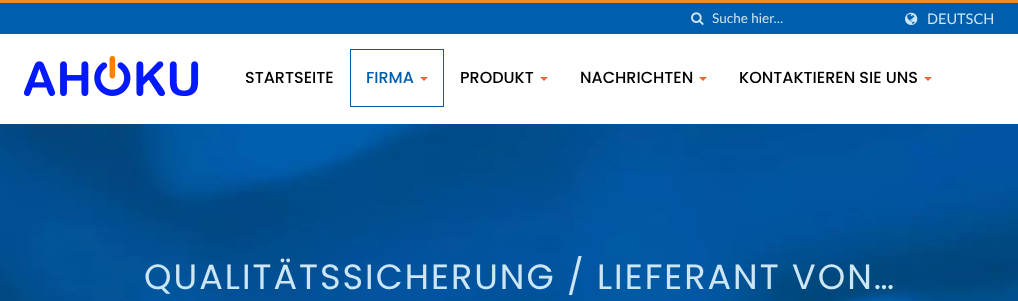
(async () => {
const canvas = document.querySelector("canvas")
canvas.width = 1018
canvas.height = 301
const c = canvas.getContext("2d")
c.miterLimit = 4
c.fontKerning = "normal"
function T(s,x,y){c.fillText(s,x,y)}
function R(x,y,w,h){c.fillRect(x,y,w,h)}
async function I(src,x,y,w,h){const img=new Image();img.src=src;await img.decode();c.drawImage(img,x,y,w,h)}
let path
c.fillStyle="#fff"
R(0,0,1018,301)
c.fillStyle="#005eae"
R(0,3,1018,31)
c.fillStyle="#f18c1d"
R(0,0,1018,3)
await I("1.png",691,12,13,13)
c.font="13.5px Lato"
c.fillStyle="#cce6f4"
T("Suche hier...",712,23)
await I("2.png",905,12,13,13)
c.font="14.5px Lato"
T("DEUTSCH",927,24)
await I("3.png",24,56,175,40)
c.font="500 16px Poppins"
c.fillStyle="#000"
T("STARTSEITE",245,83)
c.strokeStyle="#005eae"
c.strokeRect(350.5,49.5,93,57)
c.fillStyle="#005eae"
T("FIRMA",366,83)
c.fillStyle="#e16b30"
path = new Path2D("M420 77h8l-4 4z")
c.fill(path)
c.fillStyle="#000"
T("PRODUKT",460,83)
c.fillStyle="#e16b30"
path = new Path2D("M540 77h8l-4 4z")
c.fill(path)
c.fillStyle="#000"
T("NACHRICHTEN",580,83)
c.fillStyle="#e16b30"
path = new Path2D("M699 77h8l-4 4z")
c.fill(path)
c.fillStyle="#000"
T("KONTAKTIEREN SIE UNS",739,83)
c.fillStyle="#e16b30"
path = new Path2D("M924 77h8l-4 4z")
c.fill(path)
await I("4.png",0,124,1018,177)
c.letterSpacing="2px"
c.font="35px Poppins"
c.fillStyle="#cce6f4"
T("QUALITÄTSSICHERUNG / LIEFERANT VON…",144,289)
})()
